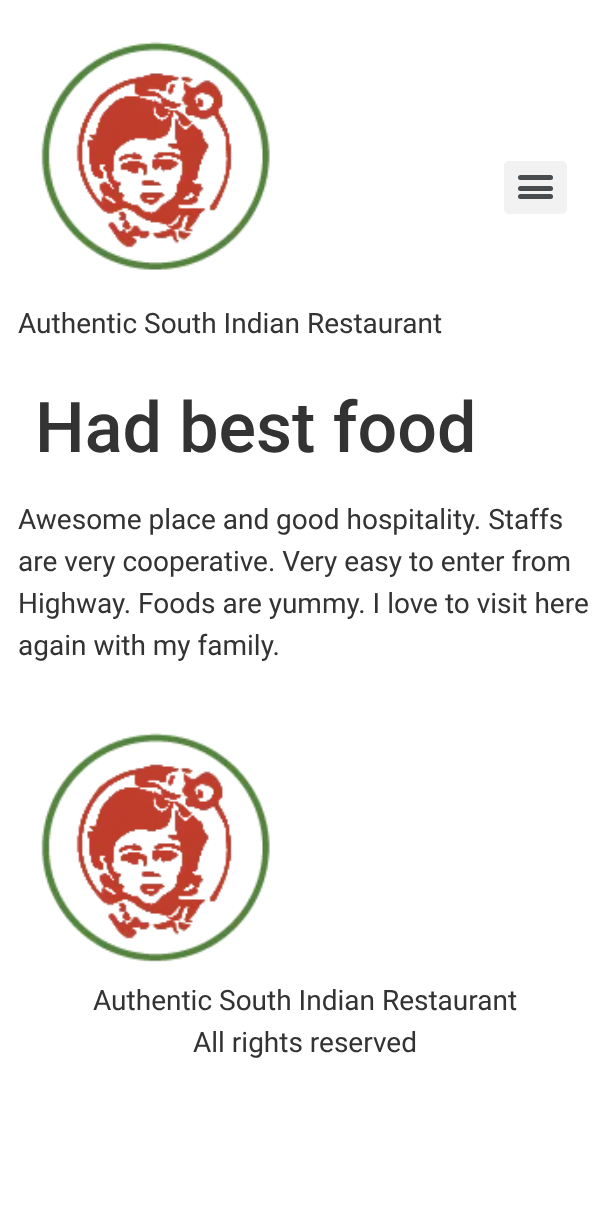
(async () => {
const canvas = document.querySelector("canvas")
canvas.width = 610
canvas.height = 1221
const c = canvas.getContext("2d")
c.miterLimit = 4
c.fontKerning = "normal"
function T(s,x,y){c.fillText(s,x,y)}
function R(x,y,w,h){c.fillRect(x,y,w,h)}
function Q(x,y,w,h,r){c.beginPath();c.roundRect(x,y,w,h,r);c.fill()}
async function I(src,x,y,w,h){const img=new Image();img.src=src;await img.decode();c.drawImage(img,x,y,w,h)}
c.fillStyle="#fff"
R(0,0,610,1221)
c.fillStyle="#f2f2f2"
Q(504,161,63,53,5)
c.fillStyle="#494c4f"
Q(518,186,35,5,2.5)
Q(518,175,35,5,2.5)
Q(518,194,35,5,2.5)
await I("1.png",41,41,229,229)
c.font="28px Roboto"
c.fillStyle="#333"
T("Authentic South Indian Restaurant",18,333)
c.font="500 70px Roboto"
T("Had best food",35,452)
c.font="28px Roboto"
T("Awesome place and good hospitality. Staffs",18,529)
T("are very cooperative. Very easy to enter from",18,571)
T("Highway. Foods are yummy. I love to visit here",18,613)
T("again with my family.",18,655)
await I("2.png",41,732,229,230)
T("Authentic South Indian Restaurant",93,1010)
T("All rights reserved",193,1052)
})()
